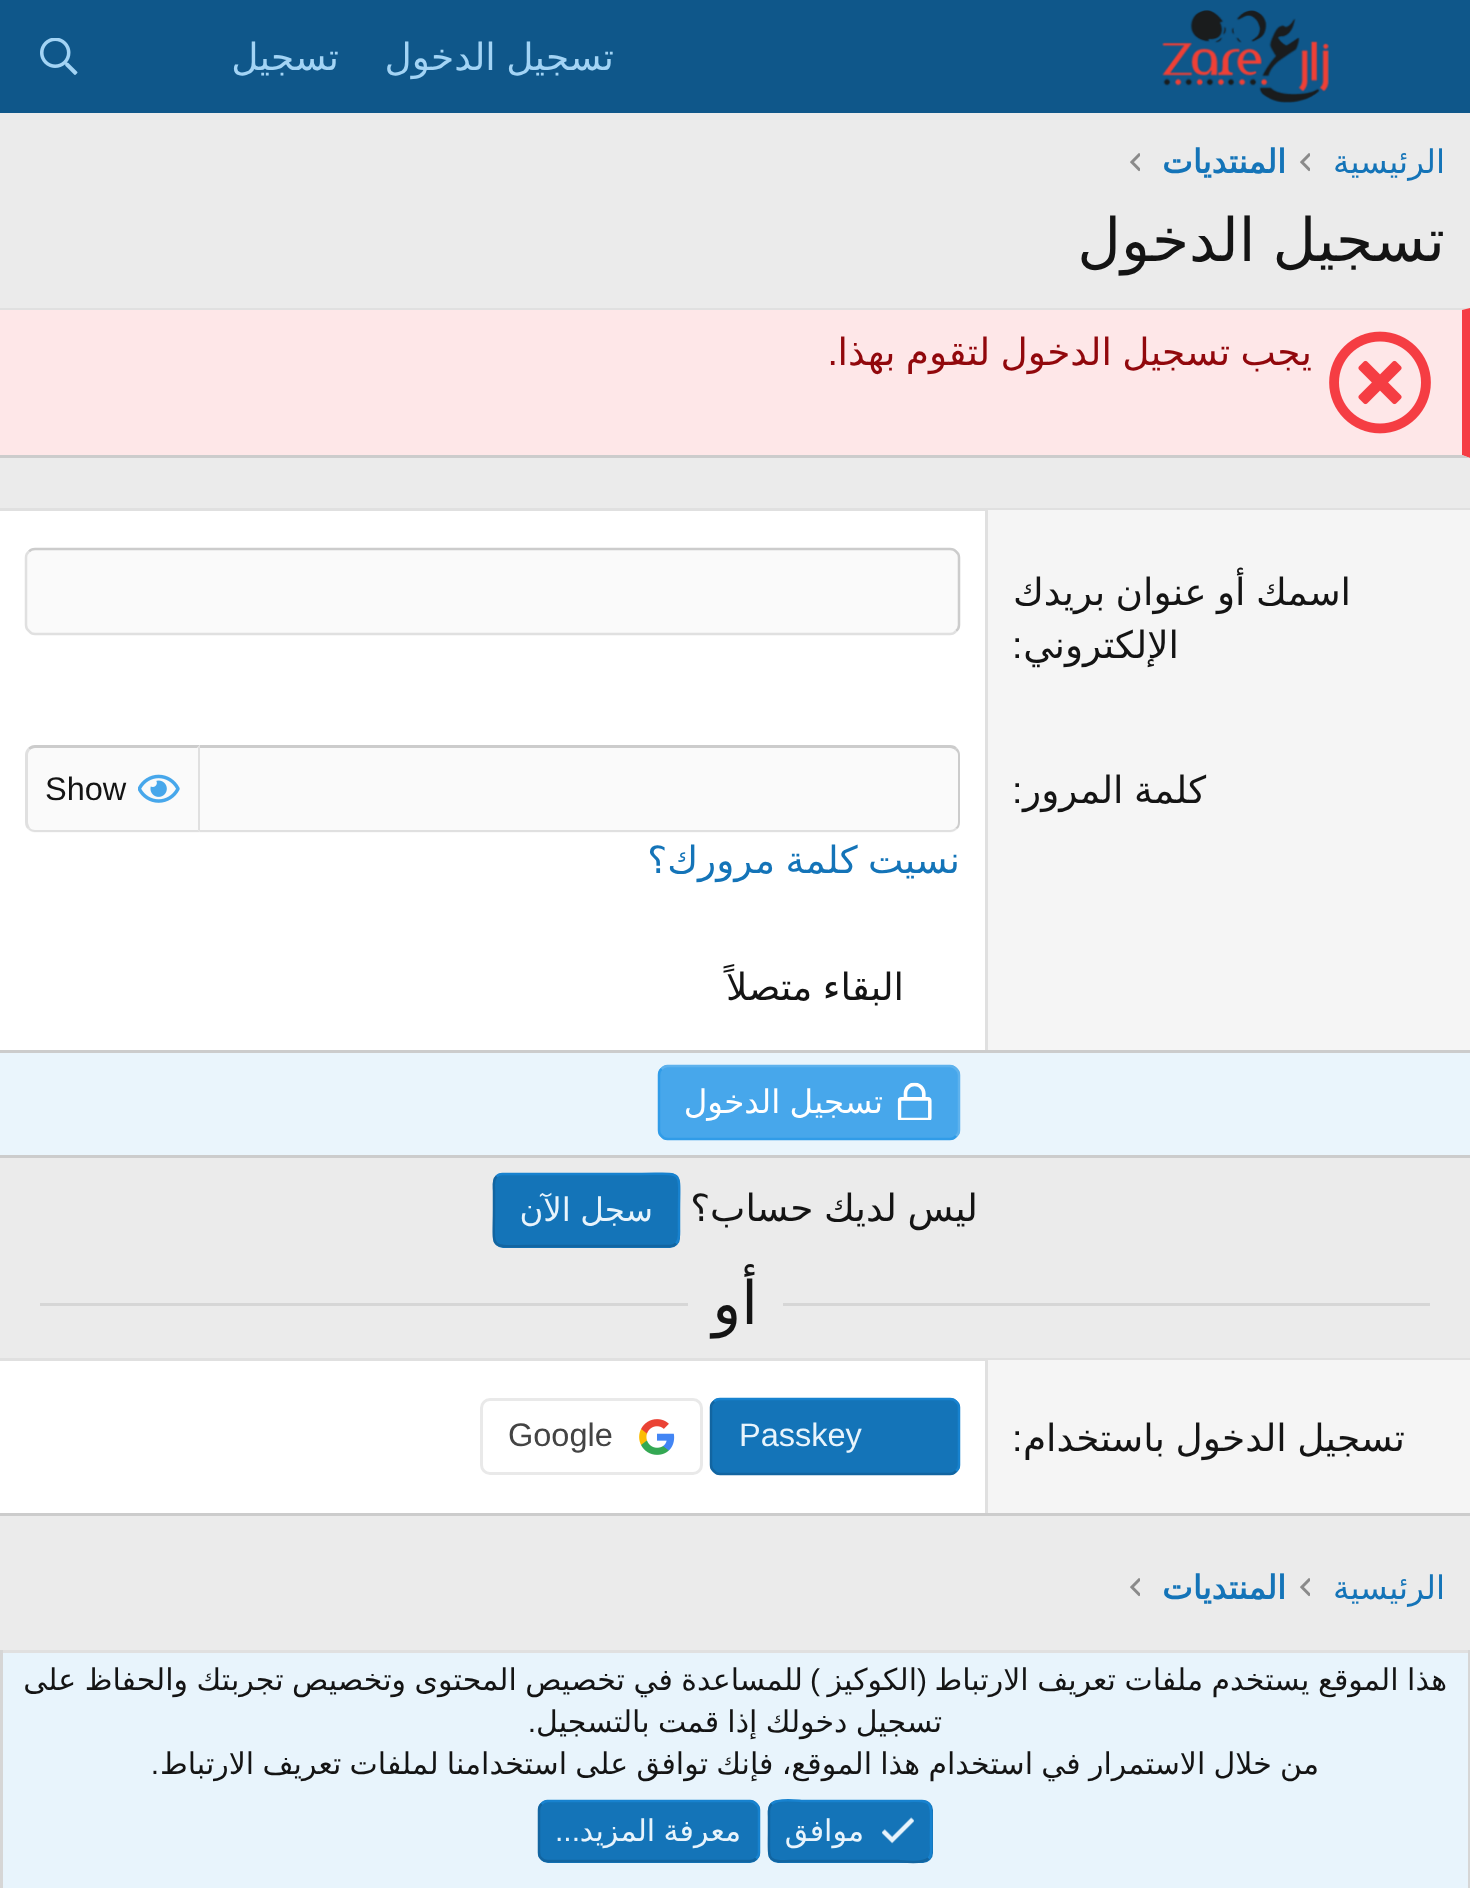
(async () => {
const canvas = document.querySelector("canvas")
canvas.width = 1470
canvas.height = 1888
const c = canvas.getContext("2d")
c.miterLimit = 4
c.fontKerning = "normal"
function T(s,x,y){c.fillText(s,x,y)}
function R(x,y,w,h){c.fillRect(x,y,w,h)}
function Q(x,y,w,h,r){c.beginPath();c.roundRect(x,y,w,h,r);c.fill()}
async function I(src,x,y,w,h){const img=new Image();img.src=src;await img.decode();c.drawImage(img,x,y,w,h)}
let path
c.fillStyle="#ebebeb"
R(0,0,1470,1888)
c.fillStyle="#0f578a"
R(0,0,1470,113)
await I("1.png",1162,10,167,93)
c.wordSpacing="-1.5px"
c.direction="rtl"
c.font="37.5px DejaVu Sans"
c.fillStyle="#a3d4f5"
T("تسجيل الدخول",614,70)
c.wordSpacing="0px"
T("تسجيل",339,70)
await I("2.png",40,38,38,37)
c.font="32.5px DejaVu Sans"
c.fillStyle="#1474b8"
T("الرئيسية",1445,173)
await I("3.png",1300,153,10,19)
c.font="bold 32.5px DejaVu Sans"
T("المنتديات",1286,173)
await I("3.png",1130,153,10,19)
c.wordSpacing="-2px"
c.font="60px DejaVu Sans"
c.fillStyle="#141414"
T("تسجيل الدخول",1445,261)
c.fillStyle="#fee7e8"
R(0,308,1470,150)
c.fillStyle="#e0e0e0"
path = new Path2D("M0 308h1470l-8 2h-1462z")
c.fill(path)
c.fillStyle="#f53d43"
path = new Path2D("M1470 308v150l-8-3v-145z")
c.fill(path)
c.fillStyle="#ccc"
path = new Path2D("M1470 458h-1470v-3h1462z")
c.fill(path)
await I("4.png",1329,331,102,103)
c.wordSpacing="-1.5px"
c.font="37.5px DejaVu Sans"
c.fillStyle="#91080c"
T("يجب تسجيل الدخول لتقوم بهذا",1312,365)
c.wordSpacing="0px"
c.font="37.5px Liberation Sans"
T(".",838,365)
c.fillStyle="#fff"
R(0,511,985,539)
c.fillStyle="#e0e0e0"
R(0,508,1470,3)
c.fillStyle="#ccc"
R(0,1155,1470,3)
c.fillStyle="#f5f5f5"
R(988,510,482,540)
c.fillStyle="#e0e0e0"
R(985,510,3,540)
c.wordSpacing="-1.5px"
c.font="37.5px DejaVu Sans"
c.fillStyle="#141414"
T("اسمك أو عنوان بريدك",1351,605)
c.wordSpacing="0px"
T("الإلكتروني",1179,658)
c.direction="ltr"
c.font="37.5px Liberation Sans"
T(":",1012,658)
c.fillStyle="#fafafa"
Q(25,548,935,87,10)
path = new Path2D("M29 551.5c1.5-2 3.5-2.5 6-2.5h915c2.5 0 4.5 .5 6 2.5c2 1.5 3 3.5 3 6v67.5c0 2.5-1 4.5-3 6")
c.strokeStyle="#ccc"
c.lineWidth=2.5
c.stroke(path)
path = new Path2D("M956 631c-1.5 2-3.5 3-6 3h-915c-2.5 0-4.5-1-6-3c-2-1.5-3-3.5-3-6v-67.5c0-2.5 1-4.5 3-6")
c.strokeStyle="#e0e0e0"
c.stroke(path)
c.wordSpacing="-1.5px"
c.direction="rtl"
c.font="37.5px DejaVu Sans"
c.fillStyle="#141414"
T("كلمة المرور",1206,803)
c.wordSpacing="0px"
c.direction="ltr"
c.font="37.5px Liberation Sans"
T(":",1012,803)
c.fillStyle="#fafafa"
c.beginPath()
c.roundRect(200,745,760,88,[0,10,10,0])
c.fill()
c.fillStyle="#ccc"
path = new Path2D("M200 745v3h750c2 0 4 1 5 2l2-2c-1-2-4-3-7-3z")
c.fill(path)
path = new Path2D("M955 828c2-1 3-3 3-6v-67c0-2-1-4-3-5l2-2c2 2 3 4 3 7v67c0 3-1 6-3 7z")
c.fill(path)
c.fillStyle="#e0e0e0"
path = new Path2D("M200 830v2h750c3 0 5-1 7-3l-2-1c-1 1-3 2-5 2z")
c.fill(path)
c.fillStyle="#fafafa"
c.beginPath()
c.roundRect(25,745,175,88,[10,0,0,10])
c.fill()
c.fillStyle="#ccc"
path = new Path2D("M35 745c-3 0-5 1-7 3l2 2c1-1 3-2 5-2h162l3-3z")
c.fill(path)
c.fillStyle="#e0e0e0"
path = new Path2D("M200 745l-3 3h1v82l2 2z")
c.fill(path)
path = new Path2D("M200 832h-165c-3 0-5-1-7-3l2-1c1 1 3 2 5 2h163z")
c.fill(path)
path = new Path2D("M25 755v67c0 3 1 6 3 7l2-1c-1-2-2-4-2-6v-67c0-2 1-4 2-5l-2-2c-2 2-3 4-3 7z")
c.fill(path)
await I("5.png",138,774,42,29)
c.font="32.5px Liberation Sans"
c.fillStyle="#141414"
T("Show",45,800)
c.wordSpacing="-1.5px"
c.direction="rtl"
c.font="37.5px DejaVu Sans"
c.fillStyle="#1474b8"
T("نسيت كلمة مرورك؟",960,873)
c.fillStyle="#141414"
T("البقاء متصلاً",904,1000)
c.fillStyle="#eaf5fc"
R(0,1053,1470,102)
c.fillStyle="#ccc"
R(0,1050,1470,3)
c.fillStyle="#47a7eb"
Q(658,1065,302,75,10)
path = new Path2D("M661.5 1069c1.5-2 3.5-3 6-3h282.5c2.5 0 4.5 1 6 3c2 1.5 3 3.5 3 6v55c0 2.5-1 4.5-3 6")
c.strokeStyle="#5eb2ed"
c.stroke(path)
path = new Path2D("M956 1136c-1.5 2-3.5 3-6 3h-282.5c-2.5 0-4.5-1-6-3c-2-1.5-2.5-3.5-2.5-6v-55c0-2.5 .5-4.5 2.5-6")
c.strokeStyle="#309ce8"
c.stroke(path)
await I("6.png",897,1082,35,38)
c.wordSpacing="-1px"
c.font="32.5px DejaVu Sans"
c.fillStyle="#fff"
T("تسجيل الدخول",883,1113)
c.wordSpacing="-1.5px"
c.font="37.5px DejaVu Sans"
c.fillStyle="#141414"
T("ليس لديك حساب؟",978,1221)
c.fillStyle="#1474b8"
Q(493,1173,187,75,10)
path = new Path2D("M496.5 1176.5c1.5-2 3.5-2.5 6-2.5h139.5c42.5 0 37-5.5 37 36v18.5c0 4.5 1 11.5-3 15")
c.strokeStyle="#1782cf"
c.stroke(path)
path = new Path2D("M676 1243.5c-1.5 2-3.5 2.5-6 2.5h-139.5c-42.5 0-36.5 5.5-36.5-36v-18.5c0-4.5-1.5-11.5 2.5-15")
c.strokeStyle="#1265a1"
c.stroke(path)
c.wordSpacing="-1px"
c.font="32.5px DejaVu Sans"
c.fillStyle="#e8f4fc"
T("سجل الآن",653,1221)
c.fillStyle="#d6d6d6"
R(783,1303,647,3)
c.wordSpacing="0px"
c.font="60px DejaVu Sans"
c.fillStyle="#141414"
T("أو",758,1324)
c.fillStyle="#d6d6d6"
R(40,1303,648,3)
c.fillStyle="#fff"
R(0,1361,985,152)
c.fillStyle="#e0e0e0"
R(0,1358,1470,3)
c.fillStyle="#ccc"
R(0,1513,1470,3)
c.fillStyle="#f5f5f5"
R(988,1360,482,153)
c.fillStyle="#e0e0e0"
R(985,1360,3,153)
c.wordSpacing="-1.5px"
c.font="37.5px DejaVu Sans"
c.fillStyle="#141414"
T("تسجيل الدخول باستخدام",1405,1451)
c.wordSpacing="0px"
c.direction="ltr"
c.font="37.5px Liberation Sans"
T(":",1012,1451)
c.fillStyle="#1474b8"
Q(710,1398,250,77,10)
path = new Path2D("M714 1401.5c1.5-2 3.5-2.5 6-2.5h230c2.5 0 4.5 .5 6 2.5c2 1.5 3 3.5 3 6v57.5c0 2.5-1 4.5-3 6")
c.strokeStyle="#1782cf"
c.stroke(path)
path = new Path2D("M956 1471c-1.5 2-3.5 3-6 3h-230c-2.5 0-4.5-1-6-3c-2-1.5-3-3.5-3-6v-57.5c0-2.5 1-4.5 3-6")
c.strokeStyle="#1265a1"
c.stroke(path)
c.font="32.5px Liberation Sans"
c.fillStyle="#e8f4fc"
T("Passkey",739,1446)
c.beginPath()
c.roundRect(481.5,1399.5,220,74,8.5)
c.strokeStyle="#e9e9e9"
c.lineWidth=3
c.stroke()
await I("7.png",639,1419,36,36)
c.fillStyle="#444"
T("Google",508,1446)
c.direction="rtl"
c.font="32.5px DejaVu Sans"
c.fillStyle="#1474b8"
T("الرئيسية",1445,1599)
await I("3.png",1300,1578,10,19)
c.font="bold 32.5px DejaVu Sans"
T("المنتديات",1286,1599)
await I("3.png",1130,1578,10,19)
c.fillStyle="#e8f4fc"
R(3,1653,1465,235)
c.fillStyle="#e0e0e0"
R(0,1650,1470,3)
c.fillStyle="#d6d6d6"
R(1468,1650,2,238)
R(0,1650,3,238)
c.wordSpacing="-1px"
c.font="30px DejaVu Sans"
c.fillStyle="#141414"
T("هذا الموقع يستخدم ملفات تعريف الارتباط",1447,1690)
c.wordSpacing="0px"
c.font="30px Liberation Sans"
T("(",927,1690)
c.font="30px DejaVu Sans"
T("الكوكيز",917,1690)
c.font="30px Liberation Sans"
T(")",820,1690)
c.wordSpacing="-1px"
c.font="30px DejaVu Sans"
T("للمساعدة في تخصيص المحتوى وتخصيص تجربتك والحفاظ على",803,1690)
c.wordSpacing="-1.25px"
T("تسجيل دخولك إذا قمت بالتسجيل",942,1732)
c.wordSpacing="0px"
c.font="30px Liberation Sans"
T(".",536,1732)
c.wordSpacing="-1.25px"
c.font="30px DejaVu Sans"
T("من خلال الاستمرار في استخدام هذا الموقع، فإنك توافق على استخدامنا لملفات تعريف الارتباط",1319,1774)
c.wordSpacing="0px"
c.font="30px Liberation Sans"
T(".",159,1774)
c.fillStyle="#1474b8"
Q(768,1800,165,63,10)
path = new Path2D("M771.5 1804c6-6 28-3 30-3h97c36 0 32.5-4 32.5 30v14.5c0 4.5 1 9.5-2.5 13")
c.strokeStyle="#1782cf"
c.lineWidth=2.5
c.stroke(path)
path = new Path2D("M928.5 1858.5c-6 6-28 2.5-30 2.5h-97c-36 0-32.5 4.5-32.5-30v-14c0-4.5-1-9.5 2.5-13")
c.strokeStyle="#1265a1"
c.stroke(path)
await I("8.png",882,1817,32,27)
c.font="30px DejaVu Sans"
c.fillStyle="#e8f4fc"
T("موافق",864,1841)
c.fillStyle="#1474b8"
Q(538,1800,222,63,10)
path = new Path2D("M541.5 1804c1.5-2 3.5-3 6-3h202.5c2.5 0 4.5 1 6 3c2 1.5 3 3.5 3 6v42.5c0 2.5-1 4.5-3 6")
c.strokeStyle="#1782cf"
c.stroke(path)
path = new Path2D("M756 1858.5c-1.5 2-3.5 2.5-6 2.5h-202.5c-2.5 0-4.5-.5-6-2.5c-2-1.5-2.5-3.5-2.5-6v-42.5c0-2.5 .5-4.5 2.5-6")
c.strokeStyle="#1265a1"
c.stroke(path)
c.wordSpacing="-1.25px"
c.fillStyle="#e8f4fc"
T("معرفة المزيد",741,1841)
c.wordSpacing="0px"
c.font="30px Liberation Sans"
T("...",580,1841)
})()
